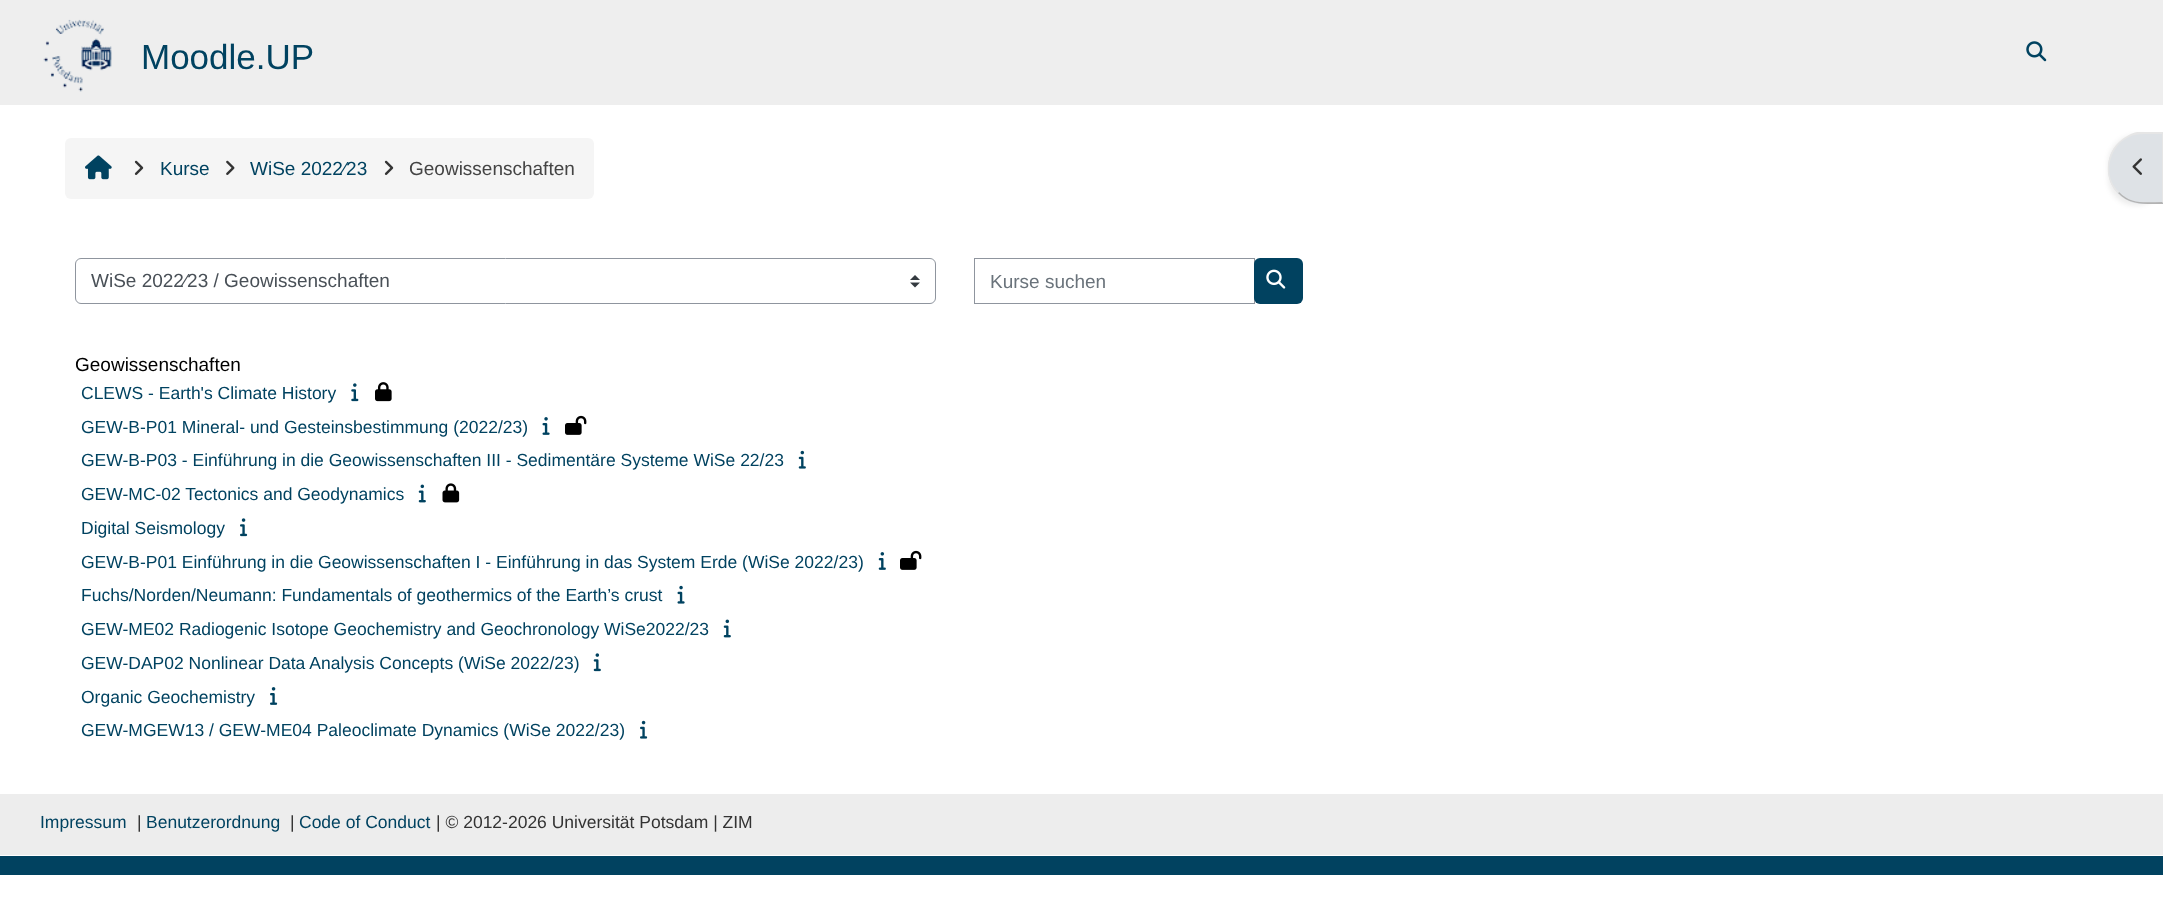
(async () => {
const canvas = document.querySelector("canvas")
canvas.width = 2163
canvas.height = 921
const c = canvas.getContext("2d")
c.miterLimit = 4
c.fontKerning = "normal"
function T(s,x,y){c.fillText(s,x,y)}
function R(x,y,w,h){c.fillRect(x,y,w,h)}
function Q(x,y,w,h,r){c.beginPath();c.roundRect(x,y,w,h,r);c.fill()}
async function I(src,x,y,w,h){const img=new Image();img.src=src;await img.decode();c.drawImage(img,x,y,w,h)}
let path
c.fillStyle="#fff"
R(0,0,2163,921)
c.fillStyle="#eee"
R(0,0,2163,105)
await I("1.png",43,19,69,73)
c.font="35px Liberation Sans"
c.fillStyle="#004260"
T("Moodle.UP",141,69)
await I("2.png",2026,41,21,21)
c.fillStyle="#f5f5f5"
Q(65,138,529,61,6)
await I("3.png",85,155,27,25)
await I("4.png",134,160,10,15)
c.font="19px Liberation Sans"
c.fillStyle="#004260"
T("Kurse",160,175)
await I("5.png",226,160,9,15)
T("WiSe 2022∕23",250,175)
await I("4.png",384,160,10,15)
c.fillStyle="#444"
T("Geowissenschaften",409,175)
await I("6.png",910,275,10,13)
c.beginPath()
c.roundRect(75.5,258.5,860,45,5.5)
c.strokeStyle="#8f959e"
c.stroke()
c.fillStyle="#495057"
T("WiSe 2022∕23 / Geowissenschaften",91,287)
c.strokeRect(974.5,258.5,280,45)
c.fillStyle="#6a737b"
T("Kurse suchen",990,288)
c.fillStyle="#014260"
Q(1254,258,49,46,6)
await I("7.png",1266,269,20,20)
c.fillStyle="#000"
T("Geowissenschaften",75,371)
c.font="17.5px Liberation Sans"
c.fillStyle="#004260"
T("CLEWS - Earth's Climate History",81,399)
await I("8.png",351,383,8,19)
await I("9.png",375,382,17,20)
T("GEW-B-P01 Mineral- und Gesteinsbestimmung (2022/23)",81,433)
await I("10.png",542,417,8,18)
await I("11.png",565,415,22,20)
T("GEW-B-P03 - Einführung in die Geowissenschaften III - Sedimentäre Systeme WiSe 22/23",81,466)
await I("12.png",798,450,8,19)
T("GEW-MC-02 Tectonics and Geodynamics",81,500)
await I("13.png",418,484,8,19)
await I("14.png",442,483,18,20)
T("Digital Seismology",81,534)
await I("15.png",240,518,8,19)
T("GEW-B-P01 Einführung in die Geowissenschaften I - Einführung in das System Erde (WiSe 2022/23)",81,568)
await I("16.png",878,552,8,18)
await I("11.png",900,550,22,20)
T("Fuchs/Norden/Neumann: Fundamentals of geothermics of the Earth’s crust",81,601)
await I("17.png",677,585,8,19)
T("GEW-ME02 Radiogenic Isotope Geochemistry and Geochronology WiSe2022/23",81,635)
await I("13.png",723,619,8,19)
T("GEW-DAP02 Nonlinear Data Analysis Concepts (WiSe 2022/23)",81,669)
await I("18.png",593,653,8,19)
T("Organic Geochemistry",81,703)
await I("19.png",270,687,8,18)
T("GEW-MGEW13 / GEW-ME04 Paleoclimate Dynamics (WiSe 2022/23)",81,736)
await I("20.png",640,720,8,19)
c.fillStyle="#00000012"
c.filter="blur(2.5px)"
c.beginPath()
c.roundRect(2108,135,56,71,35)
c.fill()
c.filter="none"
c.fillStyle="#dee2e6"
path = new Path2D("M2143 133h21v71h-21c-19.5 0-35-15.5-35-35v-1c0-19.5 15.5-35 35-35z")
c.fill(path)
c.fillStyle="#e6e6e6"
path = new Path2D("M2143 134c-10 0-18 4-24 10l-1-1c5-5 11-9 19-11h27l-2 2z")
c.fill(path)
path = new Path2D("M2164 132l-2 2v68l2 2z")
c.fill(path)
c.fillStyle="#b3b3b3"
path = new Path2D("M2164 204c-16 0-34 2-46-11l1-1c12 13 27 10 43 10z")
c.fill(path)
c.fillStyle="#e6e6e6"
path = new Path2D("M2118 193c-14-13-13-37 0-50l1 1c-12 13-14 35 0 48z")
c.fill(path)
await I("21.png",2132,158,10,17)
c.fillStyle="#ededed"
R(0,794,2163,61)
c.fillStyle="#004260"
T("Impressum",40,828)
c.fillStyle="#333"
T("|",137,828)
c.fillStyle="#004260"
T("Benutzerordnung",146,828)
c.fillStyle="#333"
T("|",290,828)
c.fillStyle="#004260"
T("Code of Conduct",299,828)
c.fillStyle="#333"
T("| © 2012-2026 Universität Potsdam | ZIM",436,828)
c.fillStyle="#014260"
R(0,856,2163,19)
})()
